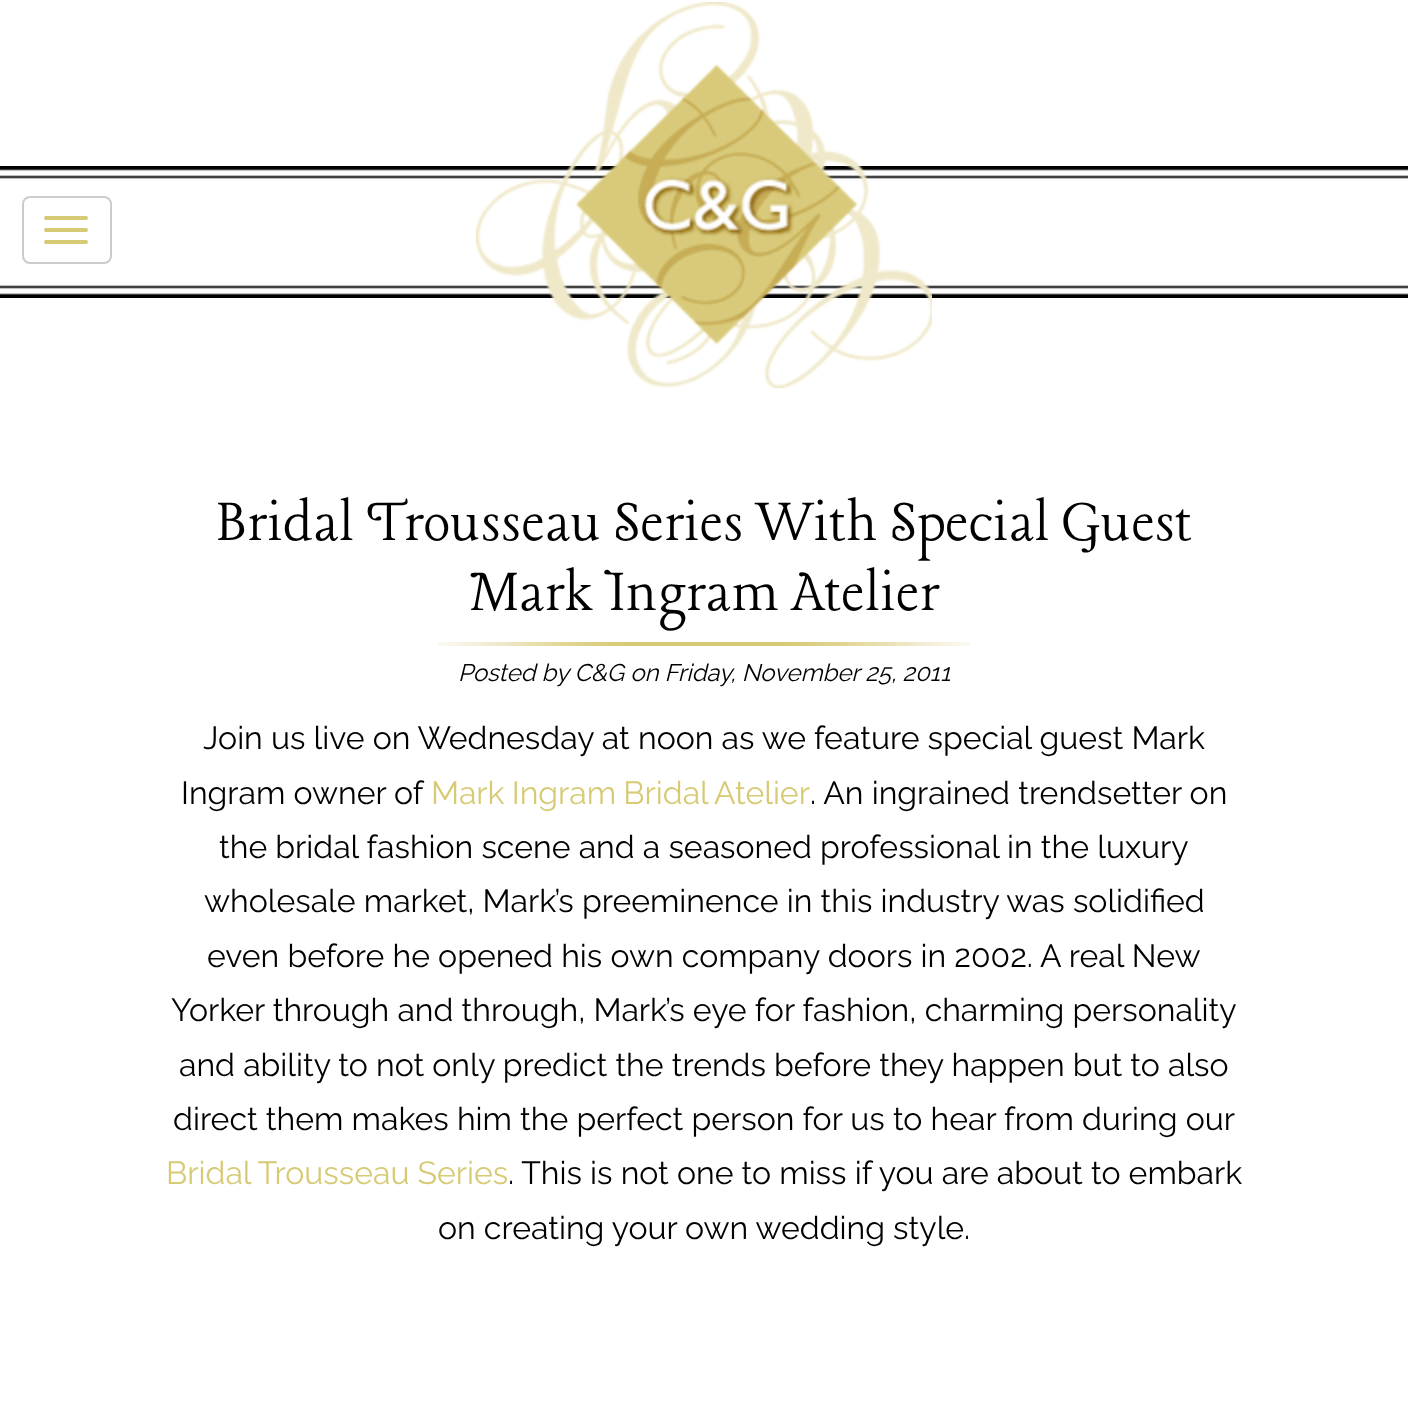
(async () => {
const canvas = document.querySelector("canvas")
canvas.width = 1408
canvas.height = 1408
const c = canvas.getContext("2d")
c.miterLimit = 4
c.fontKerning = "normal"
function T(s,x,y){c.fillText(s,x,y)}
function R(x,y,w,h){c.fillRect(x,y,w,h)}
function Q(x,y,w,h,r){c.beginPath();c.roundRect(x,y,w,h,r);c.fill()}
async function I(src,x,y,w,h){const img=new Image();img.src=src;await img.decode();c.drawImage(img,x,y,w,h)}
c.fillStyle="#fff"
R(0,0,1408,1408)
await I("1.png",0,166,1408,132)
c.beginPath()
c.roundRect(23,197,88,66,7)
c.strokeStyle="#ccc"
c.lineWidth=2
c.stroke()
c.fillStyle="#d7ca74"
Q(44,216,44,4,2)
Q(44,228,44,4,2)
Q(44,240,44,4,2)
await I("2.png",476,2,456,386)
await I("3.png",438,642,532,4)
c.font="64px Lancelot"
c.fillStyle="#000"
T("Bridal Trousseau Series With Special Guest",217,540)
T("Mark Ingram Atelier",469,610)
c.font="italic 100 24px Raleway"
T("Posted by C&G on Friday, November 25, 2011",458,681)
c.font="100 32px Raleway"
T("Join us live on Wednesday at noon as we feature special guest Mark",203,749)
T("Ingram owner of",181,804)
c.wordSpacing="-1px"
c.fillStyle="#d7ca74"
T("Mark Ingram Bridal Atelier",431,804)
c.wordSpacing="0px"
c.fillStyle="#000"
T(". An ingrained trendsetter on",810,804)
T("the bridal fashion scene and a seasoned professional in the luxury",219,858)
T("wholesale market, Mark’s preeminence in this industry was solidified",204,912)
T("even before he opened his own company doors in 2002. A real New",207,967)
T("Yorker through and through, Mark’s eye for fashion, charming personality",171,1021)
T("and ability to not only predict the trends before they happen but to also",179,1076)
T("direct them makes him the perfect person for us to hear from during our",173,1130)
c.fillStyle="#d7ca74"
T("Bridal Trousseau Series",166,1184)
c.fillStyle="#000"
T(". This is not one to miss if you are about to embark",508,1184)
T("on creating your own wedding style.",438,1239)
})()
